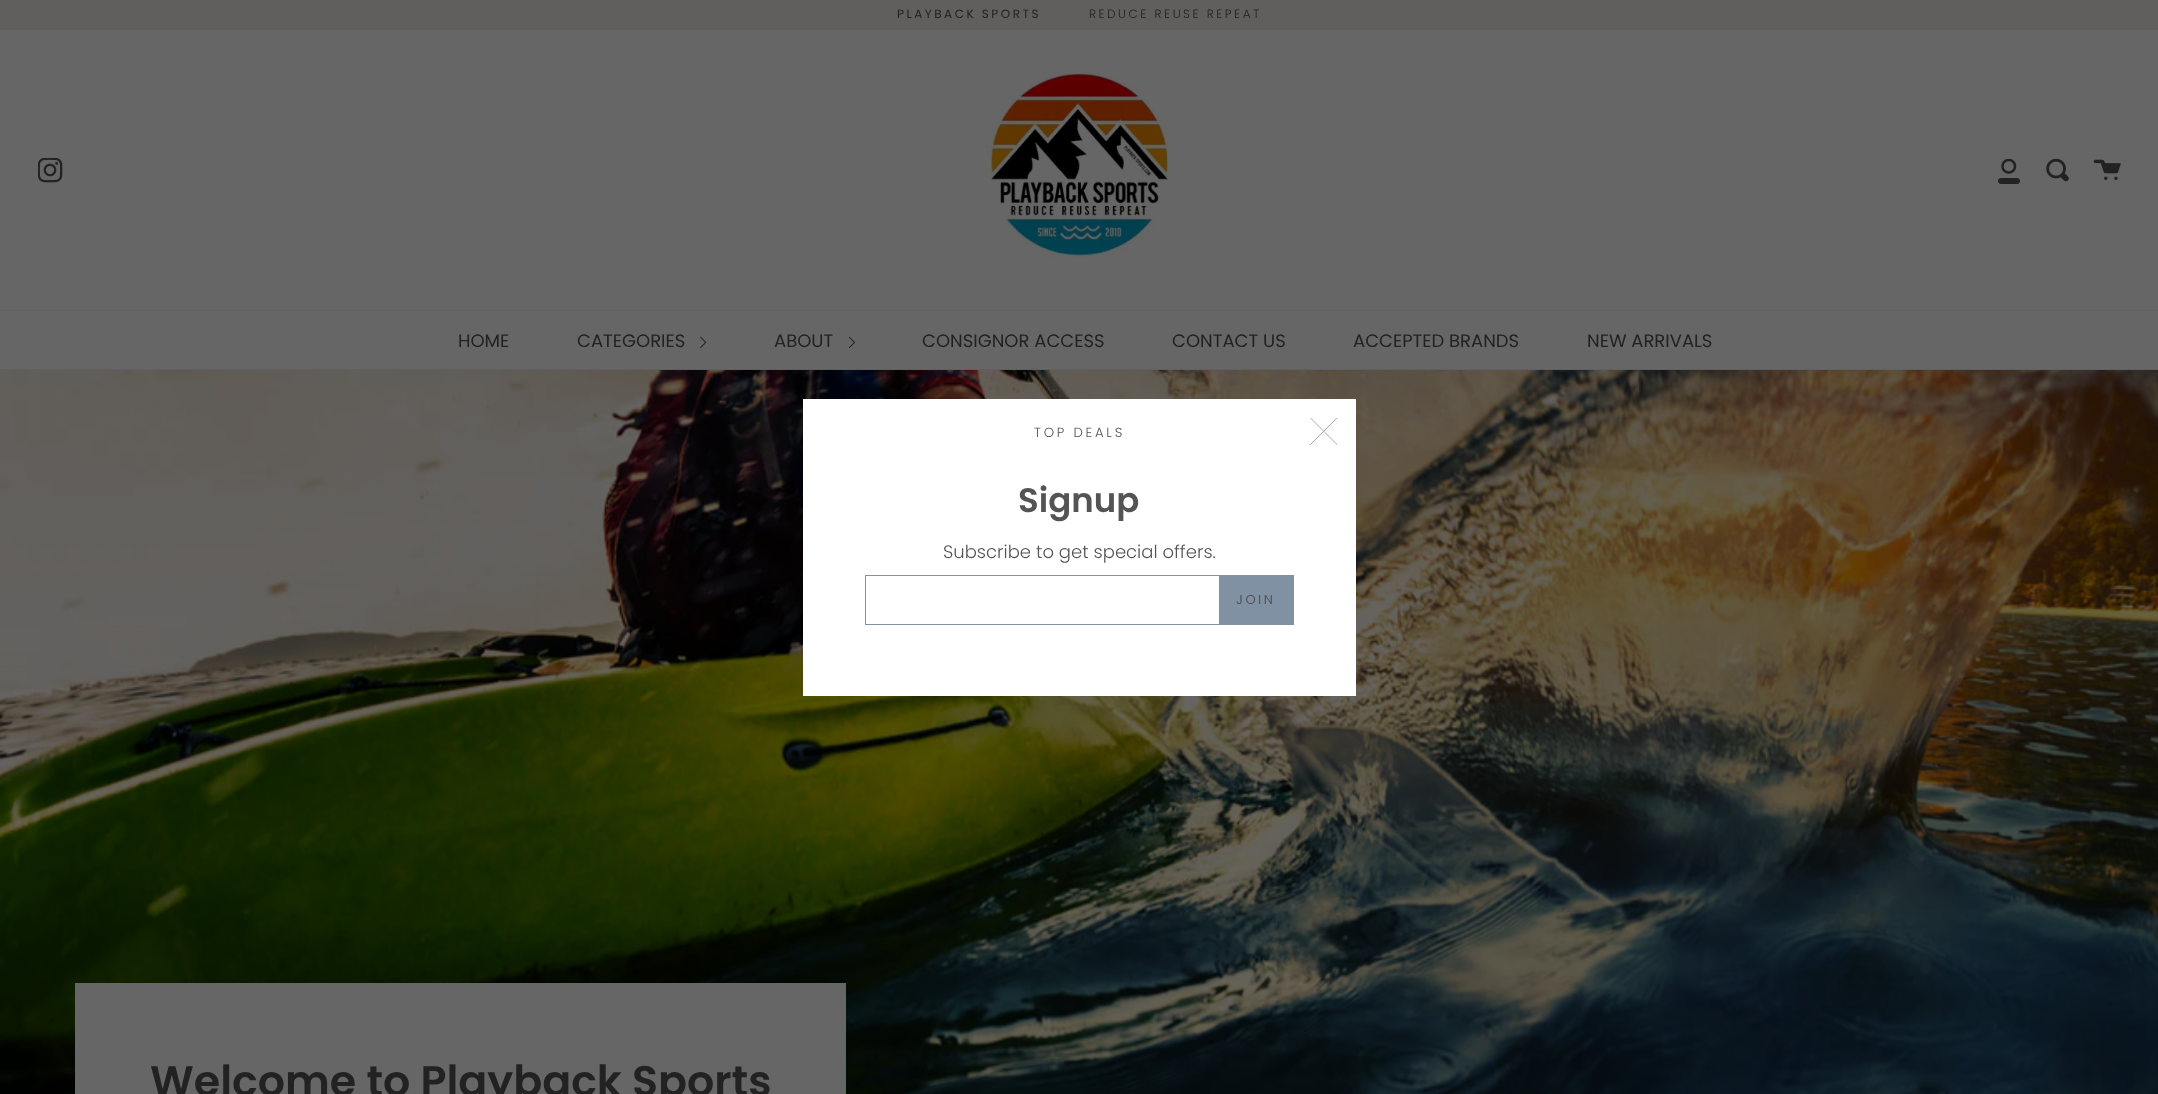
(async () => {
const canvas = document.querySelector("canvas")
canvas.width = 2158
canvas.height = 1094
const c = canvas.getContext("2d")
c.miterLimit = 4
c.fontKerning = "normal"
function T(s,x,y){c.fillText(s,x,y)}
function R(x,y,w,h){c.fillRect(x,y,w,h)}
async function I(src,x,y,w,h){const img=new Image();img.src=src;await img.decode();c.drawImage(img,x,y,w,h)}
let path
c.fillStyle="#fff"
R(0,0,2158,1094)
c.fillStyle="#605f5e"
R(0,0,2158,30)
c.letterSpacing="2.5px"
c.font="12px Poppins"
c.fillStyle="#222"
T("PLAYBACK SPORTS",897,18)
c.font="300 12px Poppins"
T("REDUCE REUSE REPEAT",1089,18)
c.fillStyle="#666"
R(0,30,2158,280)
await I("1.png",38,158,25,25)
await I("2.png",983,71,187,187)
await I("3.png",1998,159,22,25)
await I("4.png",2046,158,23,24)
await I("5.png",2093,159,28,21)
R(0,311,2158,58)
c.fillStyle="#606060"
R(0,310,2158,1)
R(0,369,2158,1)
c.letterSpacing="0px"
c.font="18px Poppins"
c.fillStyle="#222"
T("HOME",458,347)
T("CATEGORIES",577,347)
await I("6.png",700,336,6,13)
T("ABOUT",774,347)
await I("7.png",849,336,6,13)
T("CONSIGNOR ACCESS",922,347)
T("CONTACT US",1172,347)
T("ACCEPTED BRANDS",1353,347)
T("NEW ARRIVALS",1587,347)
await I("8.png",0,370,2158,724)
c.fillStyle="#fff"
R(803,399,553,297)
c.letterSpacing="2.75px"
c.font="300 13.25px Poppins"
c.fillStyle="#545454"
T("TOP DEALS",1034,437)
c.letterSpacing="0px"
c.font="600 34px Poppins"
T("Signup",1018,512)
c.font="300 18px Poppins"
T("Subscribe to get special offers.",943,558)
c.strokeStyle="#8191a4"
c.strokeRect(865.5,575.5,428,49)
c.fillStyle="#8191a4"
R(1219,576,74,48)
c.letterSpacing="2.5px"
c.font="13px Poppins"
c.fillStyle="#545454"
T("JOIN",1236,604)
c.save()
c.beginPath()
c.rect(1310,418,28,27)
c.clip()
path = new Path2D("M1310.5 418l26.5 26.5m0-26.5l-26.5 26.5")
c.strokeStyle="#aaa"
c.lineCap="square"
c.stroke(path)
c.restore()
c.fillStyle="#666"
R(75,983,771,111)
c.letterSpacing="0px"
c.font="600 42.75px Poppins"
c.fillStyle="#222"
T("Welcome to Playback Sports",150,1096)
})()
